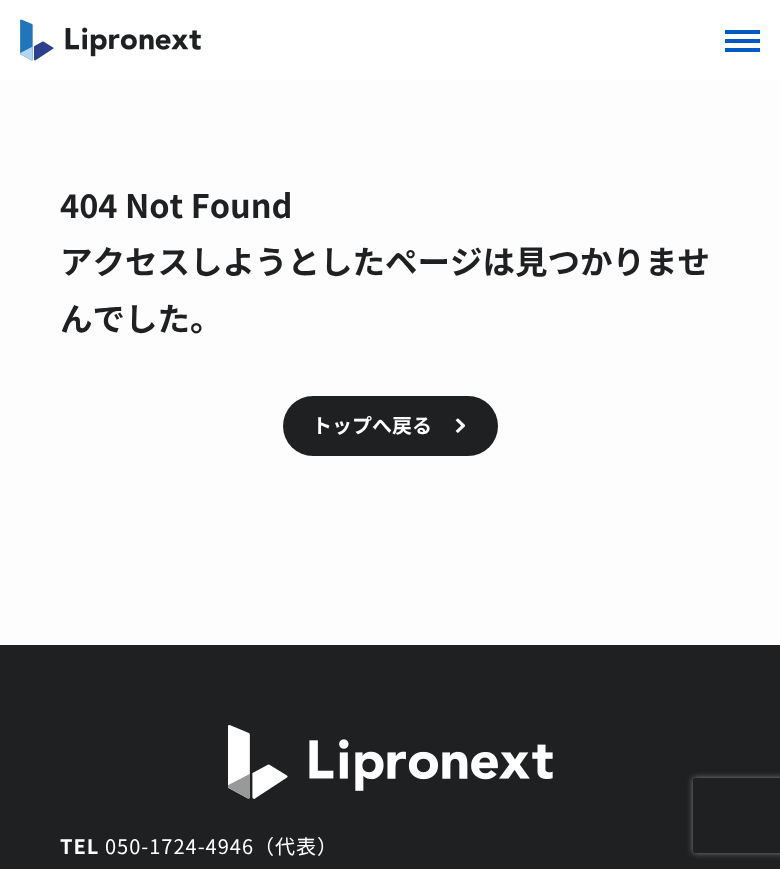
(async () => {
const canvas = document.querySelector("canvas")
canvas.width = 780
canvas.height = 869
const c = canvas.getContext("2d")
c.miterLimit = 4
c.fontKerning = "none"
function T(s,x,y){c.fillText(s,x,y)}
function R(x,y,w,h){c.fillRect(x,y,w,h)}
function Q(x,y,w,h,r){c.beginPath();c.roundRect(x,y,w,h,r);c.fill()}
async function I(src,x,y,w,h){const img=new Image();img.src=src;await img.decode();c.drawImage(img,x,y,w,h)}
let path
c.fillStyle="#1e2022"
R(0,0,780,869)
c.fillStyle="#fff"
R(0,0,780,80)
await I("1.png",20,19,181,42)
c.fillStyle="#005ac3"
R(725,30,35,4)
R(725,39,35,4)
R(725,48,35,4)
c.fillStyle="#fdfdfd"
R(0,80,780,565)
c.font="bold 32.5px Noto Sans JP"
c.fillStyle="#1e2022"
T("404 Not Found",60,218)
T("アクセスしようとしたページは見つかりませ",60,274)
T("んでした。",60,331)
Q(283,396,215,60,30)
c.font="bold 20px Noto Sans JP"
c.fillStyle="#fff"
T("トップへ戻る",312,433)
await I("2.png",455,418,10,15)
await I("3.png",228,725,325,74)
c.letterSpacing="1px"
T("TEL",60,854)
c.font="20px Noto Sans JP"
T("050-1724-4946（代表）",105,854)
c.save()
path = new Path2D("M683 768h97v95h-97zm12.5 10h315c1.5 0 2.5 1 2.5 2.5v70c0 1.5-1 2.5-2.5 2.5h-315c-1.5 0-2.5-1-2.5-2.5v-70c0-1.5 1-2.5 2.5-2.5z")
c.clip(path,"evenodd")
c.fillStyle="#808080"
c.filter="blur(3px)"
c.beginPath()
c.roundRect(693,778,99,75,2.5)
c.fill()
c.filter="none"
c.restore()
})()
